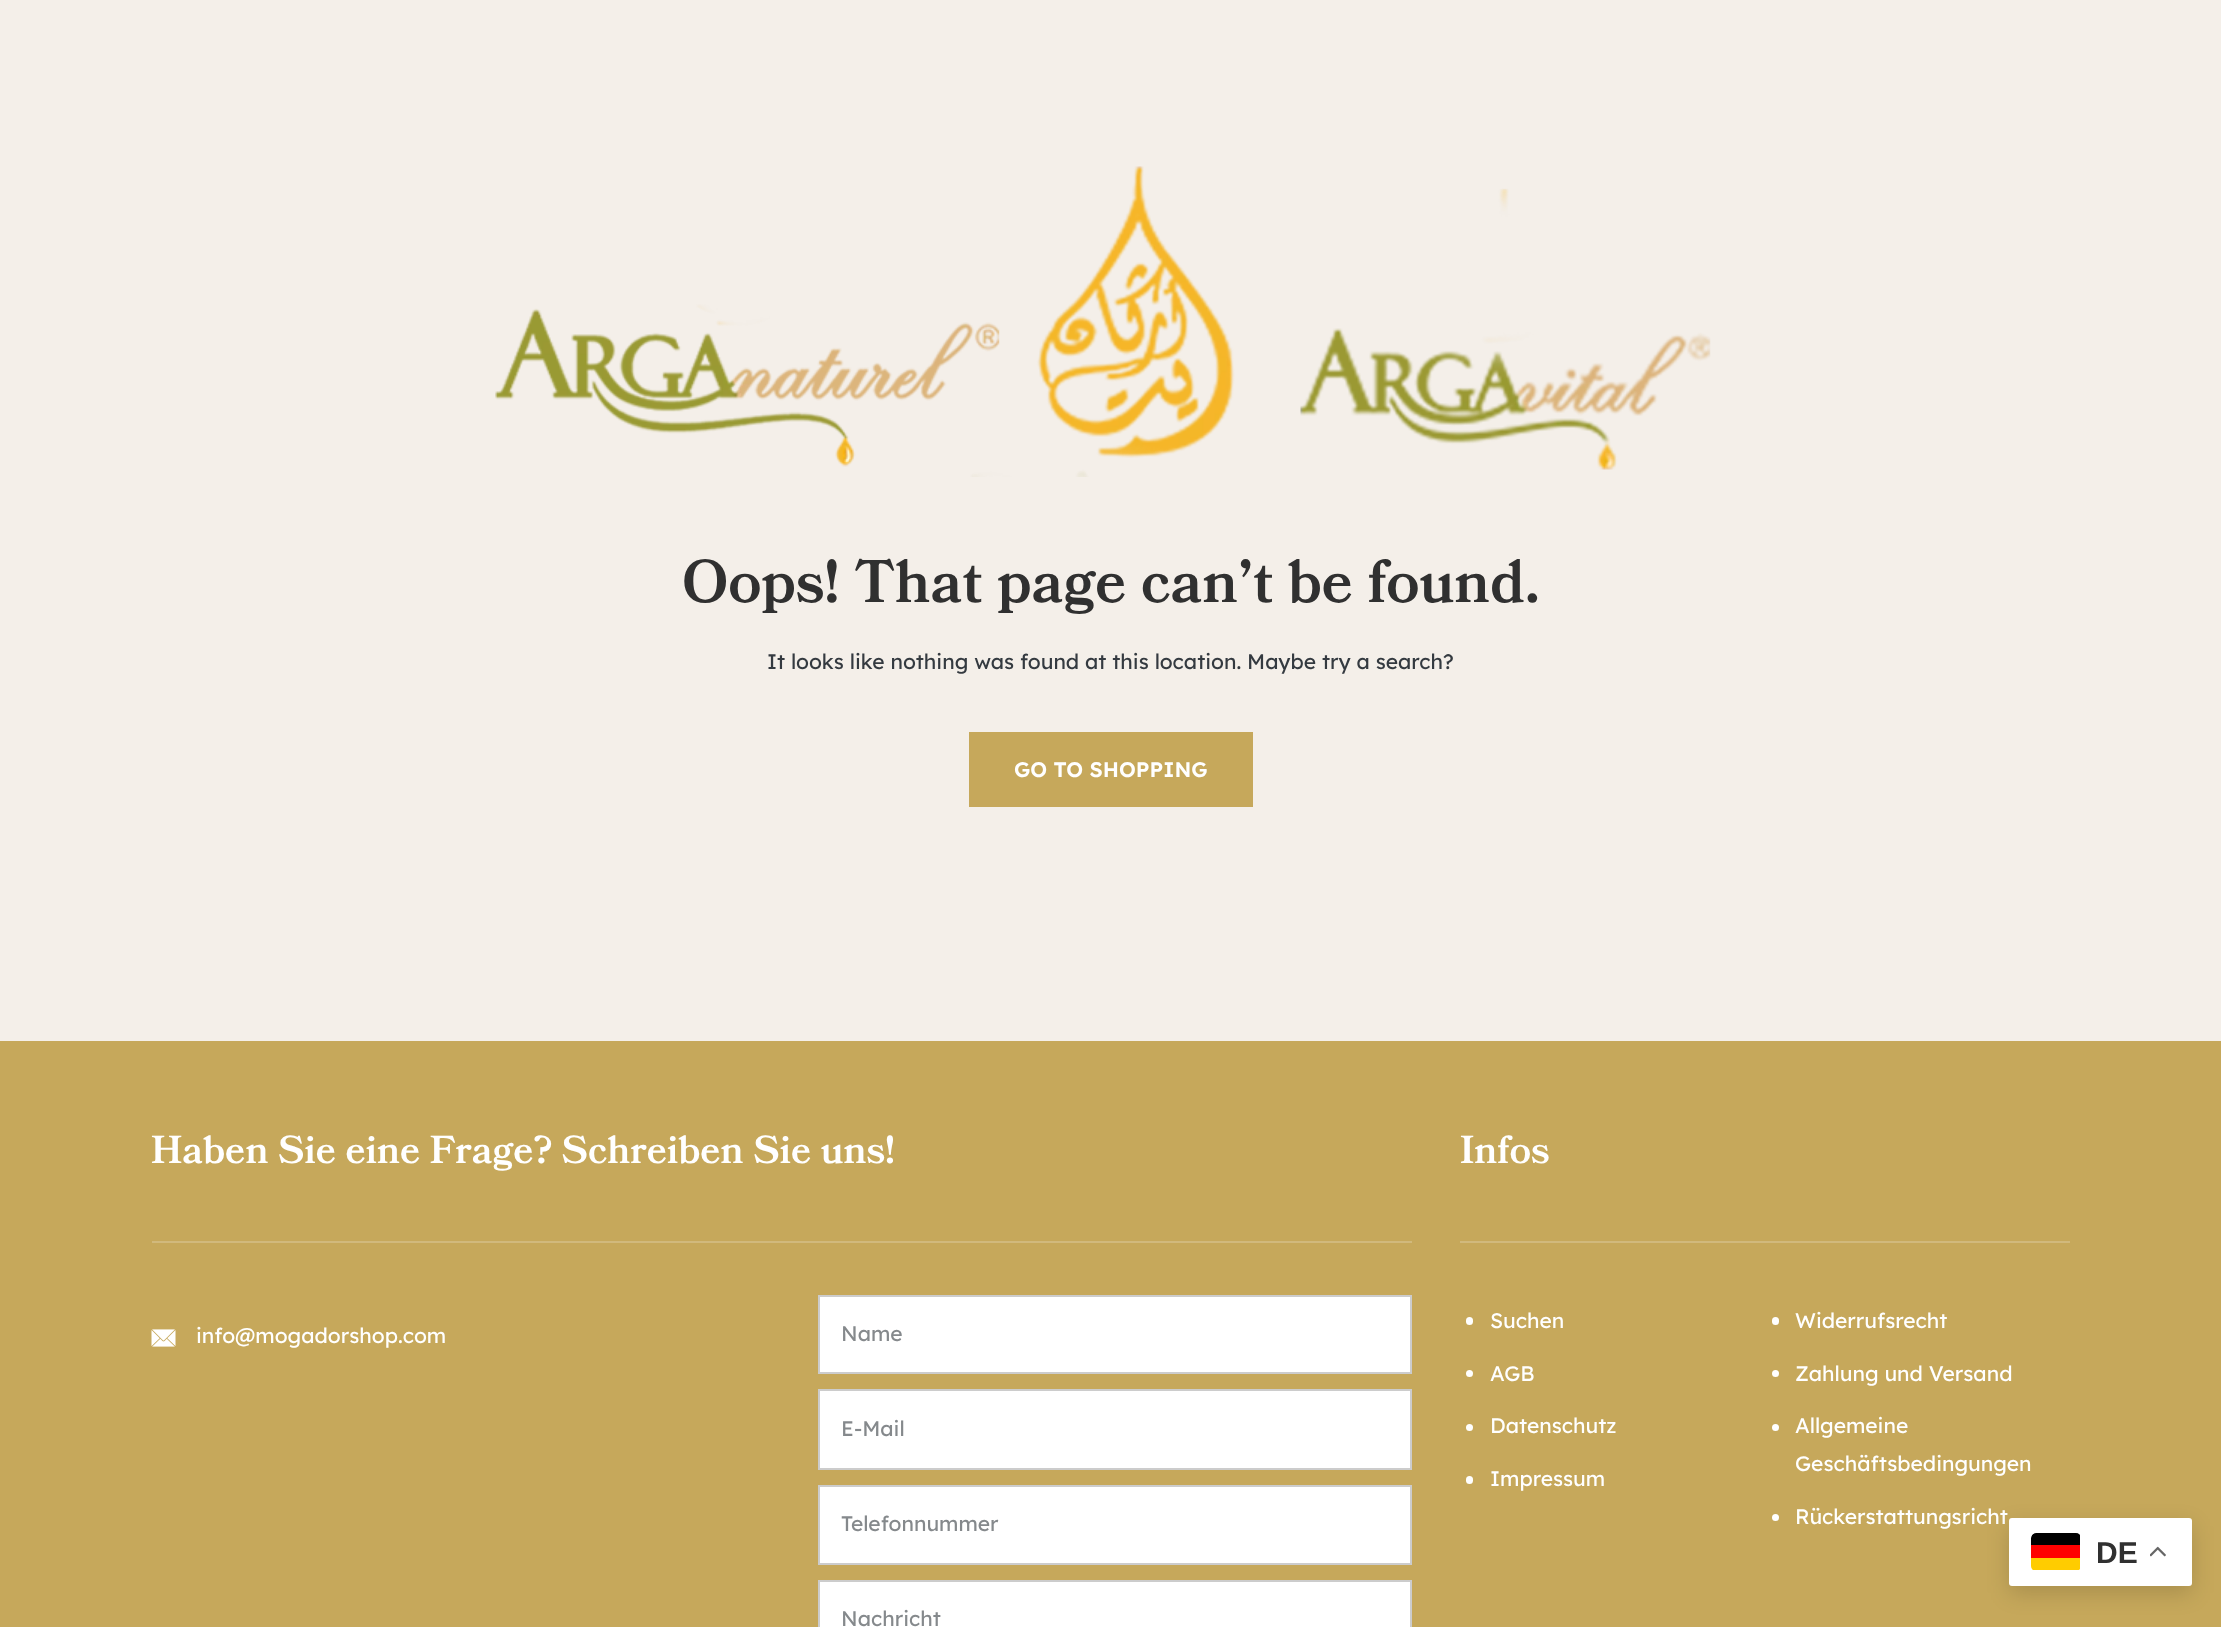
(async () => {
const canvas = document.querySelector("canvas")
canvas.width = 2221
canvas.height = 1627
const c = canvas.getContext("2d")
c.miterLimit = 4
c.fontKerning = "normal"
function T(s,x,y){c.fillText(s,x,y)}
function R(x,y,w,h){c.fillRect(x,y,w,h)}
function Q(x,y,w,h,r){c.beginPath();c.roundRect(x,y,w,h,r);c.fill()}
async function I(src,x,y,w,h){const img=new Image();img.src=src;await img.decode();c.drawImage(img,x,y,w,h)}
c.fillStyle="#f4efe9"
R(0,0,2221,1627)
await I("1.png",495,166,1216,311)
c.font="600 60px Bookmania"
c.fillStyle="#303030"
T("Oops! That page can’t be found.",682,602)
c.font="21px Lexend"
c.fillStyle="#343a40"
T("It looks like nothing was found at this location. Maybe try a search?",767,669)
c.fillStyle="#c6a85b"
R(969,732,284,75)
c.font="600 21px Lexend"
c.fillStyle="#fff"
T("GO TO SHOPPING",1014,777)
c.fillStyle="#c6a85b"
R(0,1041,2221,586)
c.fillStyle="#d1b97c"
R(152,1241,1260,2)
c.font="600 39px Bookmania"
c.fillStyle="#fff"
T("Haben Sie eine Frage? Schreiben Sie uns!",151,1163)
await I("2.png",151,1329,25,18)
c.font="21px Lexend"
T("info@mogadorshop.com",196,1343)
c.beginPath()
c.rect(819,1296,592,77)
c.fill()
c.strokeStyle="#ccc"
c.lineWidth=2
c.stroke()
c.fillStyle="#85898c"
T("Name",841,1341)
c.fillStyle="#fff"
c.beginPath()
c.rect(819,1390,592,79)
c.fill()
c.stroke()
c.fillStyle="#85898c"
T("E-Mail",841,1436)
c.fillStyle="#fff"
c.beginPath()
c.rect(819,1486,592,78)
c.fill()
c.stroke()
c.fillStyle="#85898c"
T("Telefonnummer",841,1531)
c.fillStyle="#fff"
c.beginPath()
c.rect(819,1581,592,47)
c.fill()
c.stroke()
c.fillStyle="#85898c"
T("Nachricht",841,1626)
c.fillStyle="#d1b97c"
R(1460,1241,610,2)
c.font="600 39px Bookmania"
c.fillStyle="#fff"
T("Infos",1460,1163)
Q(1466,1317,7,8,3.5)
c.font="21px Lexend"
T("Suchen",1490,1328)
Q(1772,1317,7,8,3.5)
T("Widerrufsrecht",1795,1328)
c.beginPath()
c.arc(1469.5,1373.5,3.5,0,7)
c.fill()
T("AGB",1490,1381)
c.beginPath()
c.arc(1775.5,1373.5,3.5,0,7)
c.fill()
T("Zahlung und Versand",1795,1381)
c.beginPath()
c.arc(1469.5,1427.5,3.5,0,7)
c.fill()
T("Datenschutz",1490,1433)
c.beginPath()
c.arc(1775.5,1427.5,3.5,0,7)
c.fill()
T("Allgemeine",1795,1433)
T("Geschäftsbedingungen",1795,1471)
Q(1466,1476,7,8,3.5)
T("Impressum",1490,1486)
c.beginPath()
c.arc(1775.5,1517.5,3.5,0,7)
c.fill()
T("Rückerstattungsricht",1795,1524)
c.fillStyle="#00000026"
c.filter="blur(11px)"
c.beginPath()
c.roundRect(2009,1526,183,67,3)
c.fill()
c.filter="none"
c.fillStyle="#fff"
Q(2009,1518,183,68,3)
c.save()
c.beginPath()
c.roundRect(2031,1533,50,38,5)
c.clip()
c.fillStyle="#fc0"
R(2031,1558,49,12)
c.fillStyle="#000"
c.beginPath()
c.roundRect(2031,1533,49,12,[5,0,0,0])
c.fill()
c.restore()
c.fillStyle="#f00"
R(2031,1545,49,13)
c.font="bold 30px Liberation Sans"
c.fillStyle="#303030"
T("DE",2096,1563)
await I("3.png",2150,1546,16,11)
})()
